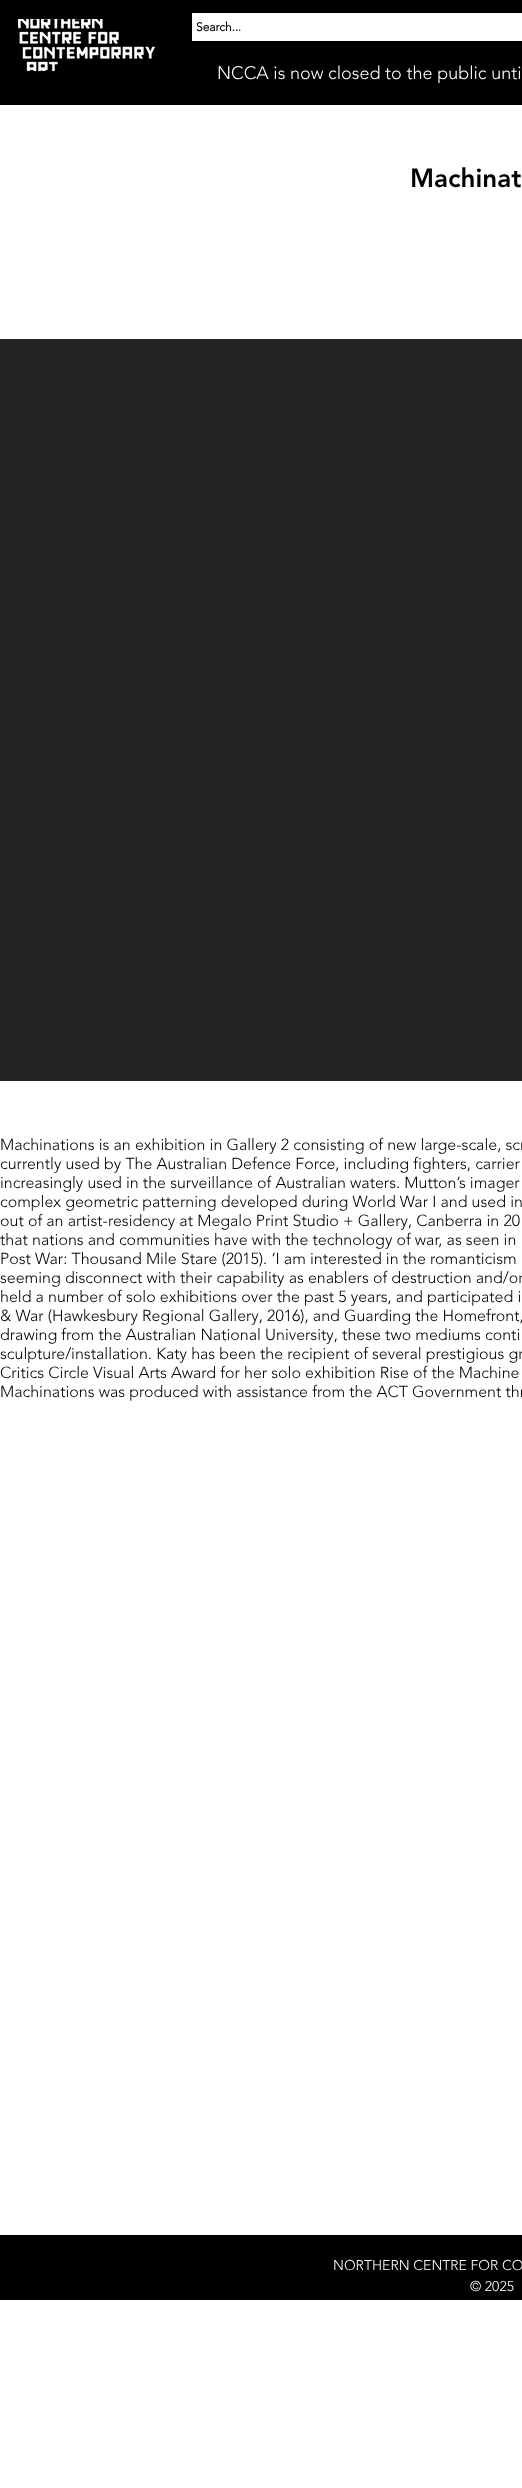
(async () => {
const canvas = document.querySelector("canvas")
canvas.width = 522
canvas.height = 2488
const c = canvas.getContext("2d")
c.miterLimit = 4
c.fontKerning = "normal"
function T(s,x,y){c.fillText(s,x,y)}
function R(x,y,w,h){c.fillRect(x,y,w,h)}
async function I(src,x,y,w,h){const img=new Image();img.src=src;await img.decode();c.drawImage(img,x,y,w,h)}
c.fillStyle="#fff"
R(0,0,522,2488)
c.fillStyle="#000"
R(0,0,522,105)
await I("1.png",18,19,137,52)
c.fillStyle="#fff"
R(192,13,330,28)
c.font="bold 12px 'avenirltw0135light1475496'"
c.fillStyle="#000"
T("Search...",196,31)
c.font="300 18px 'avenirltw0135light1475496'"
c.fillStyle="#fff"
T("NCCA is now closed to the public unti",217,79)
c.font="900 26px 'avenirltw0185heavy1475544'"
c.fillStyle="#000"
T("Machinat",410,187)
c.fillStyle="#242323"
R(0,339,522,742)
c.font="300 16px 'avenirltw0135light1475496'"
c.fillStyle="#000"
T("Machinations is an exhibition in Gallery 2 consisting of new large-scale, scr",0,1150)
T("currently used by The Australian Defence Force, including fighters, carrier",0,1169)
T("increasingly used in the surveillance of Australian waters. Mutton’s imager",0,1188)
T("complex geometric patterning developed during World War I and used in",0,1207)
T("out of an artist-residency at Megalo Print Studio + Gallery, Canberra in 20",0,1226)
T("that nations and communities have with the technology of war, as seen in",0,1245)
T("Post War: Thousand Mile Stare (2015). ‘I am interested in the romanticism",0,1264)
T("seeming disconnect with their capability as enablers of destruction and/or",0,1283)
T("held a number of solo exhibitions over the past 5 years, and participated i",0,1302)
T("& War (Hawkesbury Regional Gallery, 2016), and Guarding the Homefront,",0,1321)
T("drawing from the Australian National University, these two mediums conti",0,1340)
T("sculpture/installation. Katy has been the recipient of several prestigious gr",0,1359)
T("Critics Circle Visual Arts Award for her solo exhibition Rise of the Machine",0,1378)
T("Machinations was produced with assistance from the ACT Government thr",0,1397)
R(0,2235,522,65)
c.font="300 14px 'avenirltw0135light1475496'"
c.fillStyle="#fff"
T("NORTHERN CENTRE FOR CO",333,2270)
T("© 2025",470,2291)
})()
